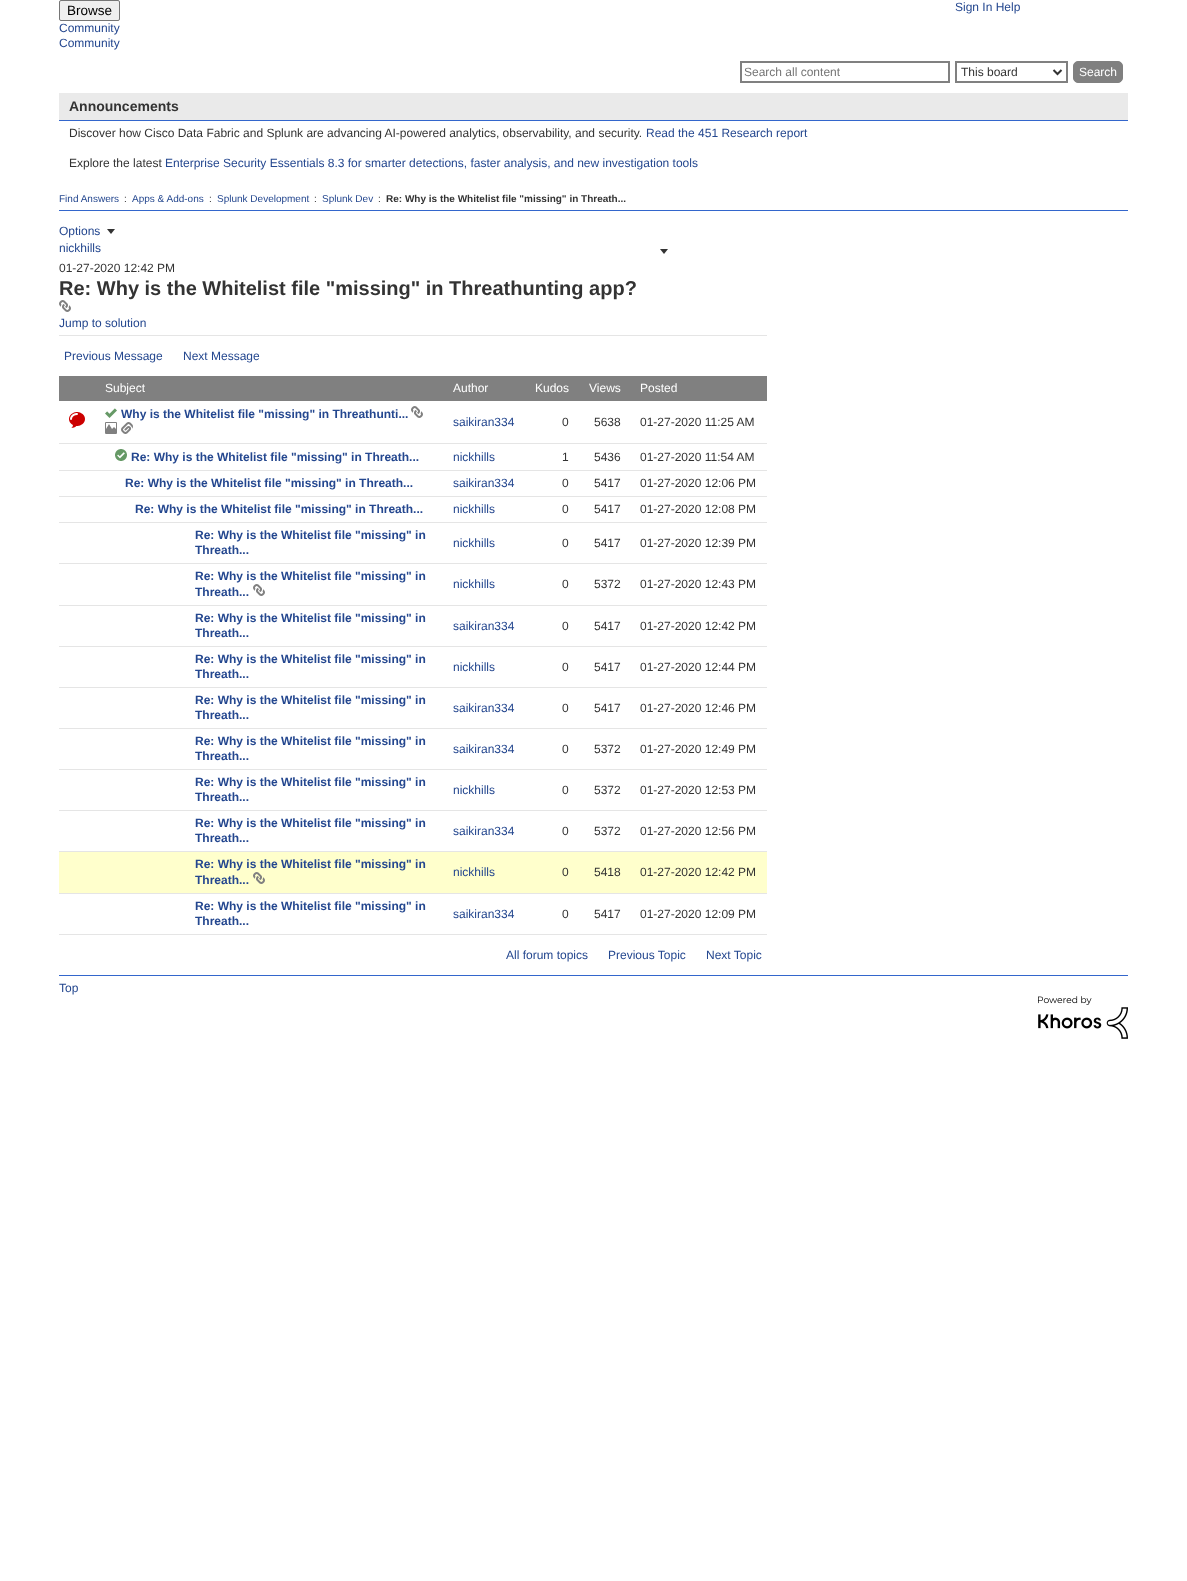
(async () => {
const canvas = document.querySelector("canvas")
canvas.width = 1187
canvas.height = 1581
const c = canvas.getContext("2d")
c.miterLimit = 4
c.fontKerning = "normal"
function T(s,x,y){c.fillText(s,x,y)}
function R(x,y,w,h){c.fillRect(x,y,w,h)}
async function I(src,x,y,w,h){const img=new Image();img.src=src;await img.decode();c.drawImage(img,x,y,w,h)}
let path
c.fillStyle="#fff"
R(0,0,1187,1581)
c.fillStyle="#efefef"
c.beginPath()
c.roundRect(59.5,.5,60,20,1.5)
c.fill()
c.strokeStyle="#767676"
c.stroke()
c.font="13.5px Liberation Sans"
c.fillStyle="#000"
T("Browse",67,15)
c.font="12px Liberation Sans"
c.fillStyle="#24478f"
T("Community",59,32)
T("Community",59,47)
T("Sign In Help",955,11)
c.strokeStyle="#808080"
c.lineWidth=2
c.strokeRect(741,62,208,20)
c.fillStyle="#757575"
T("Search all content",744,76)
c.strokeRect(956,62,111,20)
path = new Path2D("M1053.5 70l4 4l4-4")
c.strokeStyle="#333"
c.stroke(path)
c.fillStyle="#333"
T("This board",961,76)
c.fillStyle="#808080"
c.beginPath()
c.roundRect(1073.5,61.5,49,21,4.5)
c.fill()
c.strokeStyle="#808080"
c.lineWidth=1
c.stroke()
c.fillStyle="#fff"
T("Search",1079,76)
c.fillStyle="#eaeaea"
R(59,93,1069,27)
c.fillStyle="#36c"
R(59,120,1069,1)
c.font="bold 14px Liberation Sans"
c.fillStyle="#333"
T("Announcements",69,111)
c.font="12px Liberation Sans"
T("Discover how Cisco Data Fabric and Splunk are advancing AI-powered analytics, observability, and security.",69,137)
c.fillStyle="#24478f"
T("Read the 451 Research report",646,137)
c.fillStyle="#333"
T("Explore the latest",69,167)
c.fillStyle="#24478f"
T("Enterprise Security Essentials 8.3 for smarter detections, faster analysis, and new investigation tools",165,167)
c.fillStyle="#36c"
R(59,210,1069,1)
c.font="10px Liberation Sans"
c.fillStyle="#24478f"
T("Find Answers",59,202)
c.fillStyle="#333"
T(":",124,202)
c.fillStyle="#24478f"
T("Apps & Add-ons",132,202)
c.fillStyle="#333"
T(":",209,202)
c.fillStyle="#24478f"
T("Splunk Development",217,202)
c.fillStyle="#333"
T(":",314,202)
c.fillStyle="#24478f"
T("Splunk Dev",322,202)
c.fillStyle="#333"
T(":",378,202)
c.font="bold 10px Liberation Sans"
T("Re: Why is the Whitelist file \"missing\" in Threath...",386,202)
c.font="12px Liberation Sans"
c.fillStyle="#24478f"
T("Options",59,235)
await I("1.png",107,229,8,5)
c.fillStyle="#e5e5e5"
R(59,335,708,1)
c.fillStyle="#24478f"
T("nickhills",59,252)
await I("1.png",660,249,8,5)
c.fillStyle="#333"
T("01-27-2020 12:42 PM",59,272)
c.font="bold 20px Liberation Sans"
T("Re: Why is the Whitelist file \"missing\" in Threathunting app?",59,295)
await I("2.png",59,300,12,12)
c.font="12px Liberation Sans"
c.fillStyle="#24478f"
T("Jump to solution",59,327)
T("Previous Message",64,360)
T("Next Message",183,360)
c.fillStyle="#808080"
R(59,376,708,25)
c.fillStyle="#fff"
T("Subject",105,392)
T("Author",453,392)
T("Kudos",535,392)
T("Views",589,392)
T("Posted",640,392)
await I("3.png",69,412,16,16)
await I("4.png",105,408,12,10)
c.font="bold 12px Liberation Sans"
c.fillStyle="#24478f"
T("Why is the Whitelist file \"missing\" in Threathunti...",121,418)
await I("2.png",411,406,12,12)
await I("5.png",105,422,12,12)
await I("6.png",121,422,12,12)
c.font="12px Liberation Sans"
T("saikiran334",453,426)
c.fillStyle="#333"
T("0",562,426)
T("5638",594,426)
c.fillStyle="#e5e5e5"
R(59,443,708,1)
c.fillStyle="#333"
T("01-27-2020 11:25 AM",640,426)
await I("7.png",115,449,12,12)
c.font="bold 12px Liberation Sans"
c.fillStyle="#24478f"
T("Re: Why is the Whitelist file \"missing\" in Threath...",131,461)
c.font="12px Liberation Sans"
T("nickhills",453,461)
c.fillStyle="#333"
T("1",562,461)
T("5436",594,461)
c.fillStyle="#e5e5e5"
R(59,470,708,1)
c.fillStyle="#333"
T("01-27-2020 11:54 AM",640,461)
c.font="bold 12px Liberation Sans"
c.fillStyle="#24478f"
T("Re: Why is the Whitelist file \"missing\" in Threath...",125,487)
c.font="12px Liberation Sans"
T("saikiran334",453,487)
c.fillStyle="#333"
T("0",562,487)
T("5417",594,487)
c.fillStyle="#e5e5e5"
R(59,496,708,1)
c.fillStyle="#333"
T("01-27-2020 12:06 PM",640,487)
c.font="bold 12px Liberation Sans"
c.fillStyle="#24478f"
T("Re: Why is the Whitelist file \"missing\" in Threath...",135,513)
c.font="12px Liberation Sans"
T("nickhills",453,513)
c.fillStyle="#333"
T("0",562,513)
T("5417",594,513)
c.fillStyle="#e5e5e5"
R(59,522,708,1)
c.fillStyle="#333"
T("01-27-2020 12:08 PM",640,513)
c.font="bold 12px Liberation Sans"
c.fillStyle="#24478f"
T("Re: Why is the Whitelist file \"missing\" in",195,539)
T("Threath...",195,554)
c.font="12px Liberation Sans"
T("nickhills",453,547)
c.fillStyle="#333"
T("0",562,547)
T("5417",594,547)
c.fillStyle="#e5e5e5"
R(59,563,708,1)
c.fillStyle="#333"
T("01-27-2020 12:39 PM",640,547)
c.font="bold 12px Liberation Sans"
c.fillStyle="#24478f"
T("Re: Why is the Whitelist file \"missing\" in",195,580)
T("Threath...",195,596)
await I("2.png",253,584,12,12)
c.font="12px Liberation Sans"
T("nickhills",453,588)
c.fillStyle="#333"
T("0",562,588)
T("5372",594,588)
c.fillStyle="#e5e5e5"
R(59,605,708,1)
c.fillStyle="#333"
T("01-27-2020 12:43 PM",640,588)
c.font="bold 12px Liberation Sans"
c.fillStyle="#24478f"
T("Re: Why is the Whitelist file \"missing\" in",195,622)
T("Threath...",195,637)
c.font="12px Liberation Sans"
T("saikiran334",453,630)
c.fillStyle="#333"
T("0",562,630)
T("5417",594,630)
c.fillStyle="#e5e5e5"
R(59,646,708,1)
c.fillStyle="#333"
T("01-27-2020 12:42 PM",640,630)
c.font="bold 12px Liberation Sans"
c.fillStyle="#24478f"
T("Re: Why is the Whitelist file \"missing\" in",195,663)
T("Threath...",195,678)
c.font="12px Liberation Sans"
T("nickhills",453,671)
c.fillStyle="#333"
T("0",562,671)
T("5417",594,671)
c.fillStyle="#e5e5e5"
R(59,687,708,1)
c.fillStyle="#333"
T("01-27-2020 12:44 PM",640,671)
c.font="bold 12px Liberation Sans"
c.fillStyle="#24478f"
T("Re: Why is the Whitelist file \"missing\" in",195,704)
T("Threath...",195,719)
c.font="12px Liberation Sans"
T("saikiran334",453,712)
c.fillStyle="#333"
T("0",562,712)
T("5417",594,712)
c.fillStyle="#e5e5e5"
R(59,728,708,1)
c.fillStyle="#333"
T("01-27-2020 12:46 PM",640,712)
c.font="bold 12px Liberation Sans"
c.fillStyle="#24478f"
T("Re: Why is the Whitelist file \"missing\" in",195,745)
T("Threath...",195,760)
c.font="12px Liberation Sans"
T("saikiran334",453,753)
c.fillStyle="#333"
T("0",562,753)
T("5372",594,753)
c.fillStyle="#e5e5e5"
R(59,769,708,1)
c.fillStyle="#333"
T("01-27-2020 12:49 PM",640,753)
c.font="bold 12px Liberation Sans"
c.fillStyle="#24478f"
T("Re: Why is the Whitelist file \"missing\" in",195,786)
T("Threath...",195,801)
c.font="12px Liberation Sans"
T("nickhills",453,794)
c.fillStyle="#333"
T("0",562,794)
T("5372",594,794)
c.fillStyle="#e5e5e5"
R(59,810,708,1)
c.fillStyle="#333"
T("01-27-2020 12:53 PM",640,794)
c.font="bold 12px Liberation Sans"
c.fillStyle="#24478f"
T("Re: Why is the Whitelist file \"missing\" in",195,827)
T("Threath...",195,842)
c.font="12px Liberation Sans"
T("saikiran334",453,835)
c.fillStyle="#333"
T("0",562,835)
T("5372",594,835)
c.fillStyle="#e5e5e5"
R(59,851,708,1)
c.fillStyle="#333"
T("01-27-2020 12:56 PM",640,835)
c.fillStyle="#ffc"
R(59,852,708,41)
c.font="bold 12px Liberation Sans"
c.fillStyle="#24478f"
T("Re: Why is the Whitelist file \"missing\" in",195,868)
T("Threath...",195,884)
await I("8.png",253,872,12,12)
c.font="12px Liberation Sans"
T("nickhills",453,876)
c.fillStyle="#333"
T("0",562,876)
T("5418",594,876)
c.fillStyle="#e5e5e5"
R(59,893,708,1)
c.fillStyle="#333"
T("01-27-2020 12:42 PM",640,876)
c.font="bold 12px Liberation Sans"
c.fillStyle="#24478f"
T("Re: Why is the Whitelist file \"missing\" in",195,910)
T("Threath...",195,925)
c.font="12px Liberation Sans"
T("saikiran334",453,918)
c.fillStyle="#333"
T("0",562,918)
T("5417",594,918)
c.fillStyle="#e5e5e5"
R(59,934,708,1)
c.fillStyle="#333"
T("01-27-2020 12:09 PM",640,918)
c.fillStyle="#24478f"
T("All forum topics",506,959)
T("Previous Topic",608,959)
T("Next Topic",706,959)
c.fillStyle="#36c"
R(59,975,1069,1)
c.fillStyle="#24478f"
T("Top",59,992)
await I("9.png",1038,996,90,43)
})()
